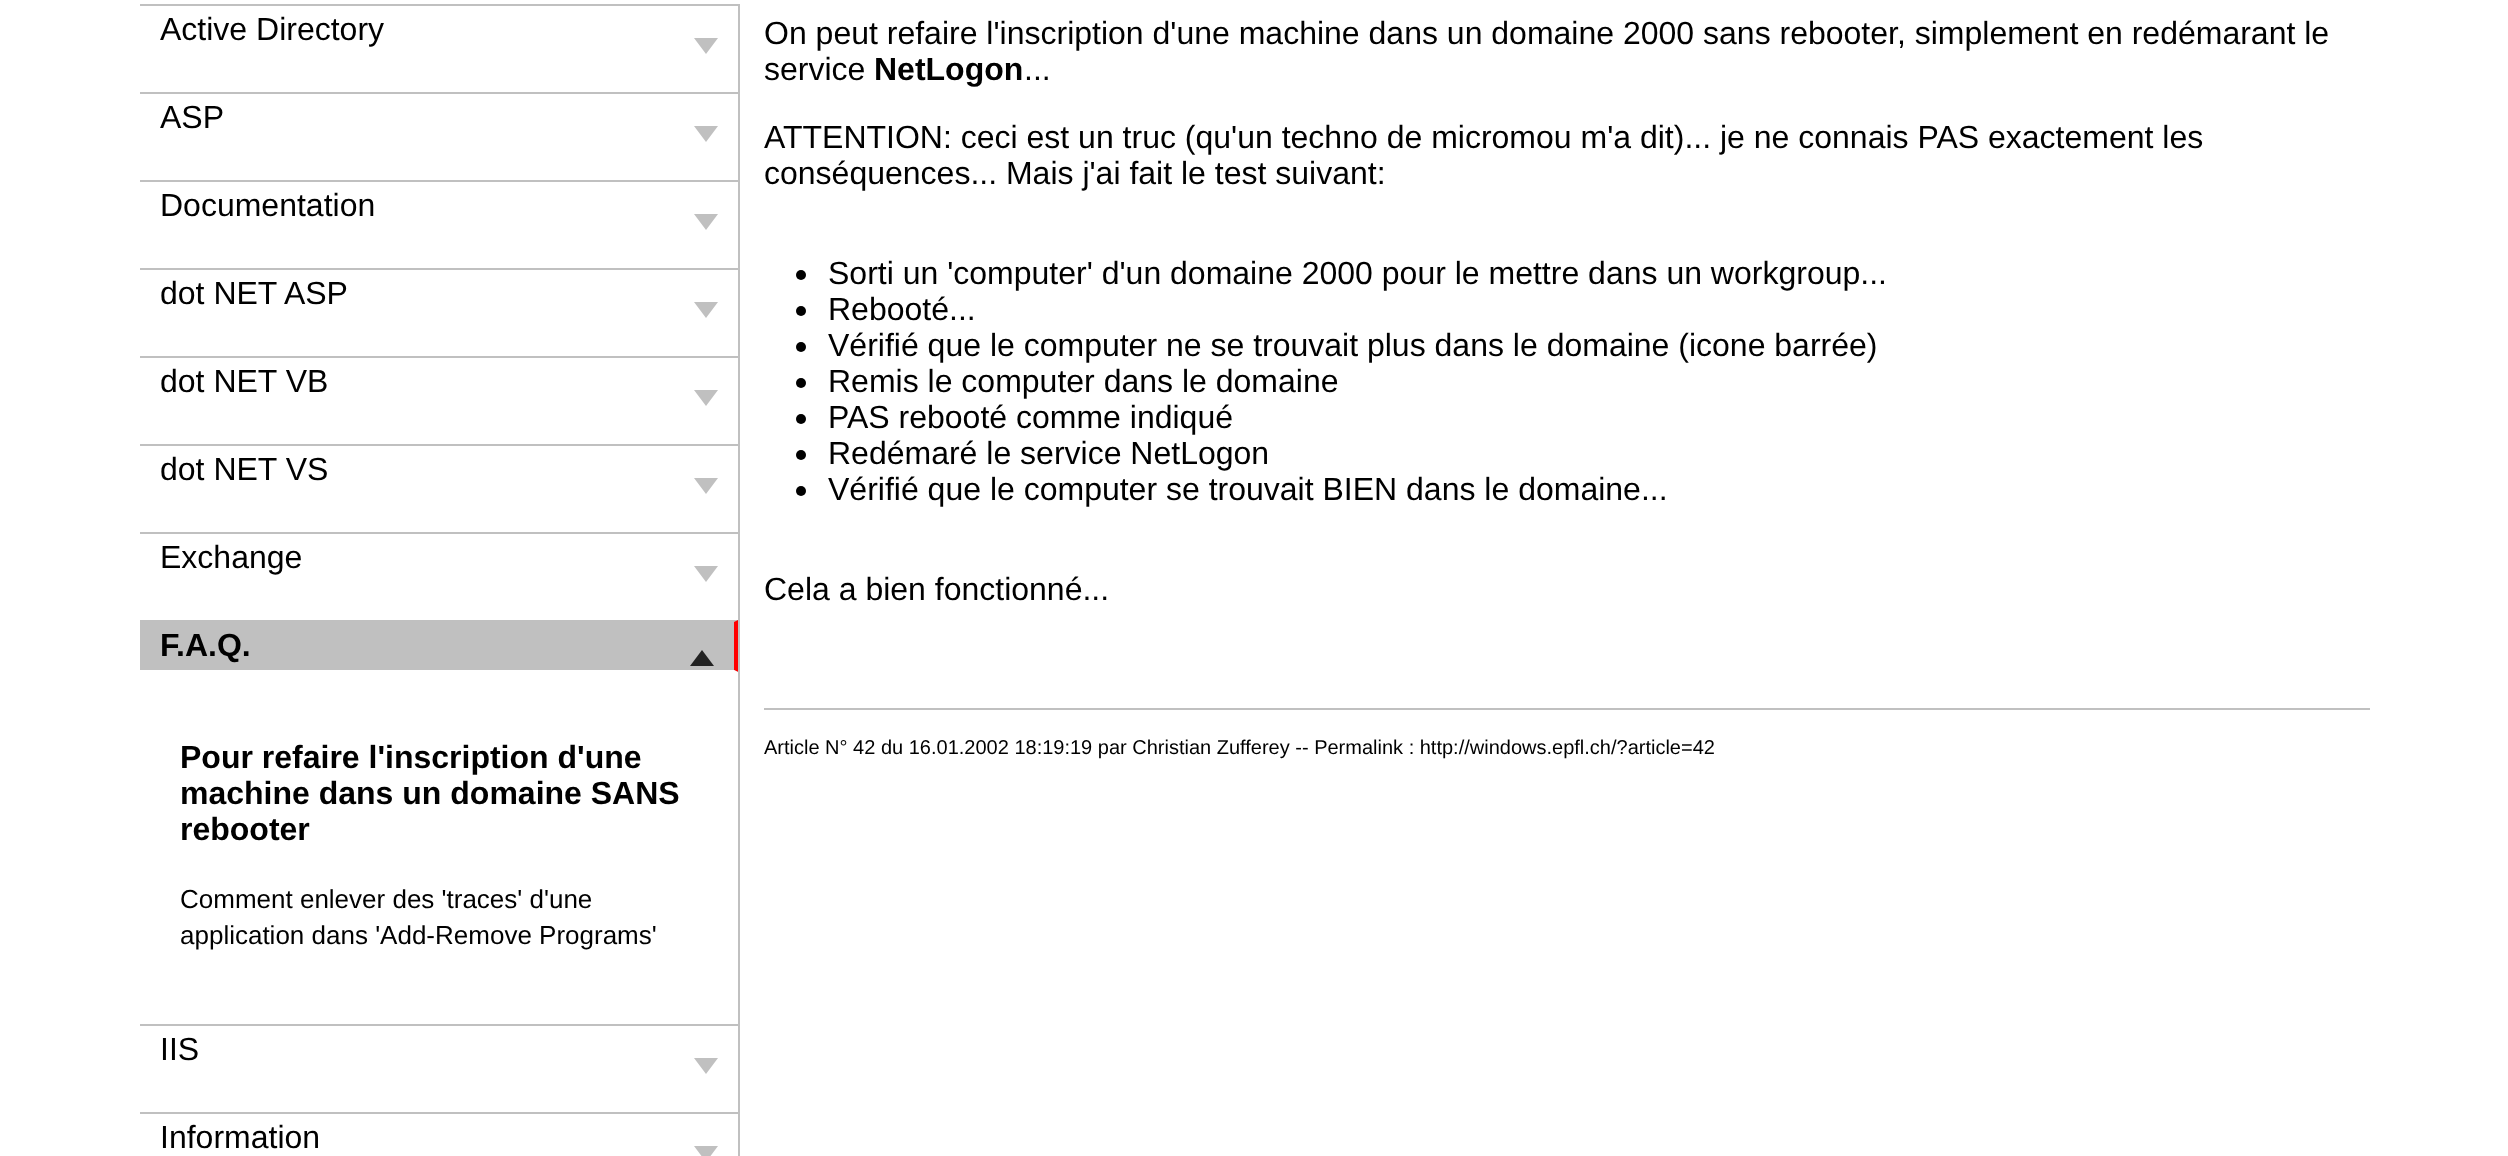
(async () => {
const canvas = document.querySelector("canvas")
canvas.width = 2508
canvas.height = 1156
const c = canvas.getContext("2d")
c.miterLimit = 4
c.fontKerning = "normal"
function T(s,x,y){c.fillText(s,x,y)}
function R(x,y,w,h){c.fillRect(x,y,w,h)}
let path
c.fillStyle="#fff"
R(0,0,2508,1156)
c.fillStyle="#c0c0c0"
R(738,4,2,1152)
R(140,4,598,2)
c.font="32px Liberation Sans"
c.fillStyle="#000"
T("Active Directory",160,40)
c.fillStyle="#c0c0c0"
path = new Path2D("M694 38h24l-12 16z")
c.fill(path)
R(140,92,598,2)
c.fillStyle="#000"
T("ASP",160,128)
c.fillStyle="#c0c0c0"
path = new Path2D("M694 126h24l-12 16z")
c.fill(path)
R(140,180,598,2)
c.fillStyle="#000"
T("Documentation",160,216)
c.fillStyle="#c0c0c0"
path = new Path2D("M694 214h24l-12 16z")
c.fill(path)
R(140,268,598,2)
c.fillStyle="#000"
T("dot NET ASP",160,304)
c.fillStyle="#c0c0c0"
path = new Path2D("M694 302h24l-12 16z")
c.fill(path)
R(140,356,598,2)
c.fillStyle="#000"
T("dot NET VB",160,392)
c.fillStyle="#c0c0c0"
path = new Path2D("M694 390h24l-12 16z")
c.fill(path)
R(140,444,598,2)
c.fillStyle="#000"
T("dot NET VS",160,480)
c.fillStyle="#c0c0c0"
path = new Path2D("M694 478h24l-12 16z")
c.fill(path)
R(140,532,598,2)
c.fillStyle="#000"
T("Exchange",160,568)
c.fillStyle="#c0c0c0"
path = new Path2D("M694 566h24l-12 16z")
c.fill(path)
R(140,620,598,52)
c.fillStyle="#f00"
path = new Path2D("M738 620v52l-4-2v-48z")
c.fill(path)
c.fillStyle="#fff"
path = new Path2D("M738 672h-598v-2h594z")
c.fill(path)
c.font="bold 32px Liberation Sans"
c.fillStyle="#000"
T("F.A.Q.",160,656)
c.fillStyle="#222"
path = new Path2D("M714 666h-24l12-16z")
c.fill(path)
c.fillStyle="#000"
T("Pour refaire l'inscription d'une",180,768)
T("machine dans un domaine SANS",180,804)
T("rebooter",180,840)
c.font="26px Liberation Sans"
T("Comment enlever des 'traces' d'une",180,908)
T("application dans 'Add-Remove Programs'",180,944)
c.fillStyle="#c0c0c0"
R(140,1024,598,2)
c.font="32px Liberation Sans"
c.fillStyle="#000"
T("IIS",160,1060)
c.fillStyle="#c0c0c0"
path = new Path2D("M694 1058h24l-12 16z")
c.fill(path)
R(140,1112,598,2)
c.fillStyle="#000"
T("Information",160,1148)
c.fillStyle="#c0c0c0"
path = new Path2D("M694 1146h24l-12 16z")
c.fill(path)
c.fillStyle="#000"
T("On peut refaire l'inscription d'une machine dans un domaine 2000 sans rebooter, simplement en redémarant le",764,44)
T("service",764,80)
c.font="bold 32px Liberation Sans"
T("NetLogon",874,80)
c.font="32px Liberation Sans"
T("...",1024,80)
T("ATTENTION: ceci est un truc (qu'un techno de micromou m'a dit)... je ne connais PAS exactement les",764,148)
T("conséquences... Mais j'ai fait le test suivant:",764,184)
c.beginPath()
c.arc(801,275,5,0,7)
c.fill()
T("Sorti un 'computer' d'un domaine 2000 pour le mettre dans un workgroup...",828,284)
c.beginPath()
c.arc(801,311,5,0,7)
c.fill()
T("Rebooté...",828,320)
c.beginPath()
c.arc(801,347,5,0,7)
c.fill()
T("Vérifié que le computer ne se trouvait plus dans le domaine (icone barrée)",828,356)
c.beginPath()
c.arc(801,383,5,0,7)
c.fill()
T("Remis le computer dans le domaine",828,392)
c.beginPath()
c.arc(801,419,5,0,7)
c.fill()
T("PAS rebooté comme indiqué",828,428)
c.beginPath()
c.arc(801,455,5,0,7)
c.fill()
T("Redémaré le service NetLogon",828,464)
c.beginPath()
c.arc(801,491,5,0,7)
c.fill()
T("Vérifié que le computer se trouvait BIEN dans le domaine...",828,500)
T("Cela a bien fonctionné...",764,600)
c.fillStyle="#c0c0c0"
R(764,708,1606,2)
c.font="20px Liberation Sans"
c.fillStyle="#000"
T("Article N° 42 du 16.01.2002 18:19:19 par Christian Zufferey -- Permalink : http://windows.epfl.ch/?article=42",764,754)
})()
